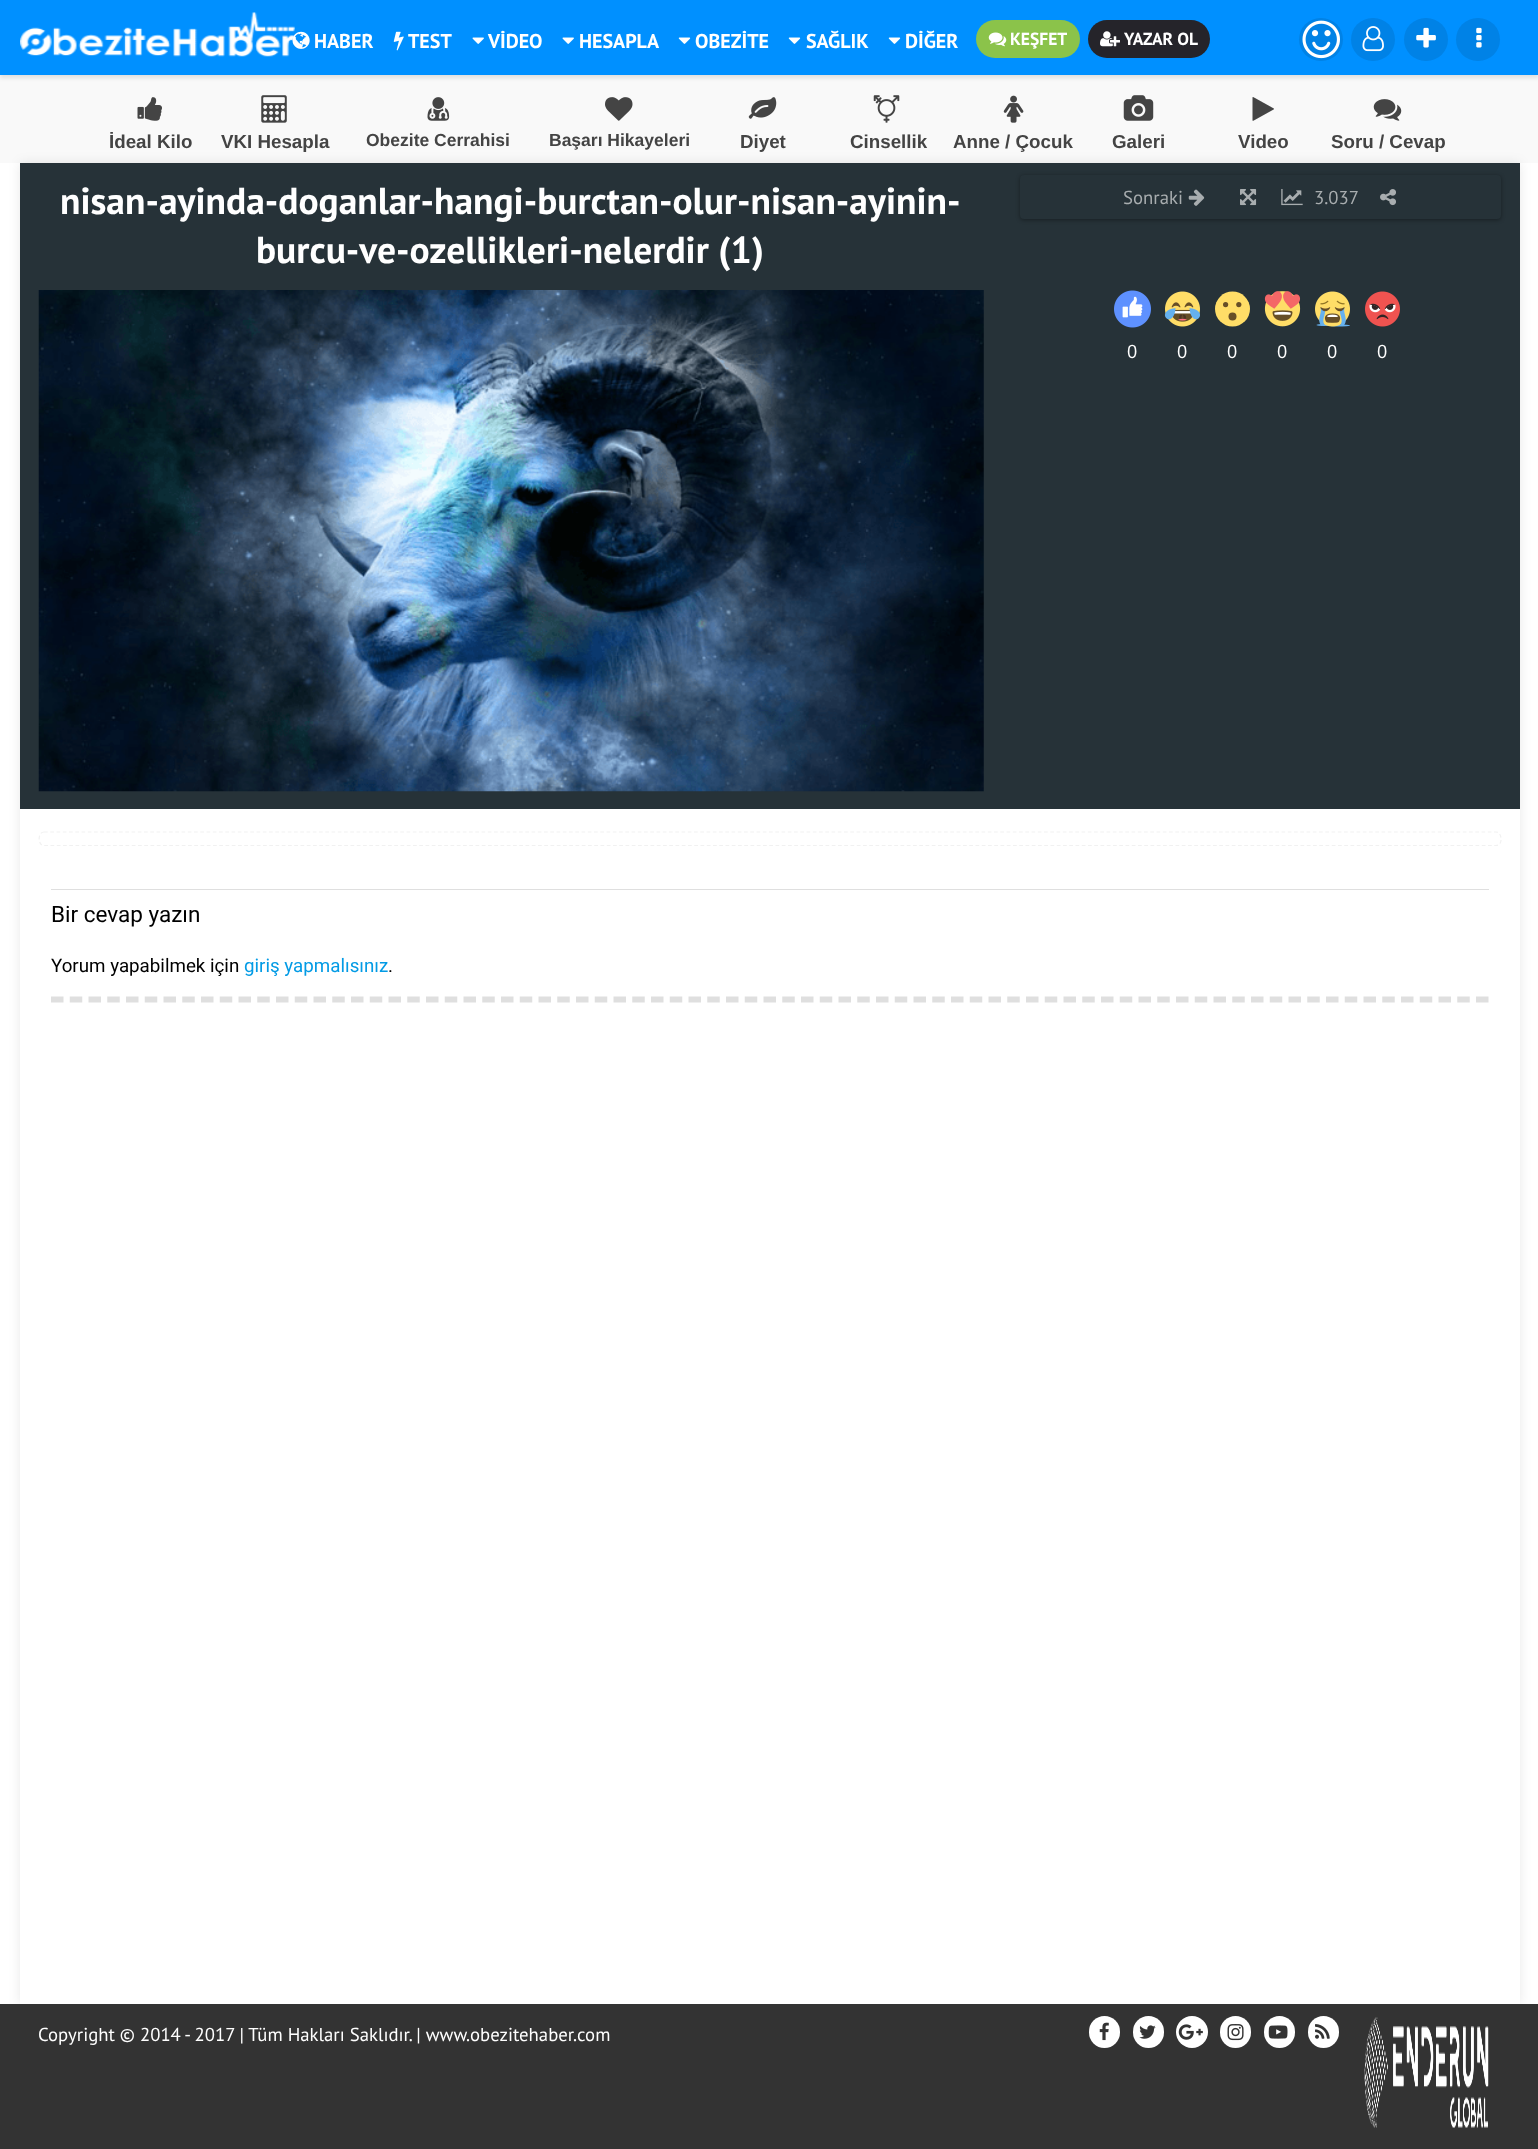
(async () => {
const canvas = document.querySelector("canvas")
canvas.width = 1538
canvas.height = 2149
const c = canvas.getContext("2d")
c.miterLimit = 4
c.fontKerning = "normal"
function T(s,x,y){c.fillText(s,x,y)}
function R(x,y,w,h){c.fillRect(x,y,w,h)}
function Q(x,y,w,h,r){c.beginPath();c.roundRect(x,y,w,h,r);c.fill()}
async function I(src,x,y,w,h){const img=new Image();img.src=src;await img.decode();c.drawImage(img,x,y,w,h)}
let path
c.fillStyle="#fff"
R(0,0,1538,2149)
c.fillStyle="#f9f9f9"
R(0,75,1538,88)
c.fillStyle="#0000001a"
c.filter="blur(2px)"
c.beginPath()
c.rect(0,3,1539,75)
c.fill()
c.filter="none"
c.fillStyle="#0090ff"
R(0,0,1538,75)
await I("1.png",20,12,275,45)
await I("2.png",292,31,18,18)
c.font="bold 20px PT Sans"
c.fillStyle="#fff"
T("HABER",314,48)
await I("3.png",393,31,11,20)
T("TEST",408,48)
await I("4.png",472,37,12,7)
T("VİDEO",488,48)
await I("4.png",562,37,12,7)
T("HESAPLA",579,48)
await I("5.png",678,37,13,7)
T("OBEZİTE",695,48)
await I("5.png",788,37,13,7)
T("SAĞLIK",806,48)
await I("5.png",888,37,13,7)
T("DİĞER",905,48)
c.fillStyle="#8bc34a"
Q(976,20,104,38,19)
await I("6.png",988,32,19,15)
c.font="bold 17.5px PT Sans"
c.fillStyle="#fff"
T("KEŞFET",1010,45)
c.fillStyle="#25242a"
Q(1088,20,122,38,19)
await I("7.png",1100,31,20,16)
c.fillStyle="#fff"
T("YAZAR OL",1124,45)
c.fillStyle="#0082e6"
Q(1299,18,44,43,21.5)
await I("8.png",1302,20,38,39)
Q(1351,18,44,43,21.5)
await I("9.png",1362,26,22,26)
Q(1404,18,44,43,21.5)
await I("10.png",1416,27,20,21)
Q(1456,18,44,43,21.5)
await I("11.png",1476,27,6,21)
await I("12.png",137,97,25,24)
c.font="bold 18.75px Liberation Sans"
c.fillStyle="#444"
T("İdeal Kilo",109,148)
await I("13.png",261,95,26,28)
T("VKI Hesapla",221,148)
await I("14.png",427,97,23,24)
c.font="bold 17.5px Liberation Sans"
T("Obezite Cerrahisi",366,146)
await I("15.png",605,97,28,24)
T("Başarı Hikayeleri",549,146)
await I("16.png",748,97,29,22)
c.font="bold 18.75px Liberation Sans"
T("Diyet",740,148)
await I("17.png",873,95,27,28)
T("Cinsellik",850,148)
await I("18.png",1003,95,21,28)
T("Anne / Çocuk",953,148)
await I("19.png",1123,95,31,26)
T("Galeri",1112,148)
await I("20.png",1252,97,22,24)
T("Video",1238,148)
await I("21.png",1373,99,29,22)
T("Soru / Cevap",1331,148)
c.fillStyle="#00000017"
c.filter="blur(6px)"
c.beginPath()
c.rect(20,163,1500,1841)
c.fill()
c.filter="none"
c.fillStyle="#fff"
R(20,809,1500,1195)
c.fillStyle="#263238"
R(20,163,1500,646)
c.font="bold 37.5px PT Sans"
c.fillStyle="#fff"
T("nisan-ayinda-doganlar-hangi-burctan-olur-nisan-ayinin-",60,214)
T("burcu-ve-ozellikleri-nelerdir (1)",256,263)
c.fillStyle="#00000061"
c.filter="blur(2px)"
c.beginPath()
c.roundRect(1020,176,481,44,4)
c.fill()
c.filter="none"
c.fillStyle="#263238"
Q(1020,175,481,44,4)
c.font="18.75px PT Sans"
c.fillStyle="#a8adaf"
T("Sonraki",1123,204)
await I("22.png",1188,189,17,17)
await I("23.png",1240,189,17,17)
await I("24.png",1281,189,22,17)
T("3.037",1314,204)
await I("25.png",1380,189,16,17)
await I("26.png",1114,290,37,38)
c.fillStyle="#fff"
T("0",1127,358)
await I("27.png",1164,291,36,36)
T("0",1177,358)
c.fillStyle="#ffdd67"
c.beginPath()
c.arc(1232.5,309,17.5,0,7)
c.fill()
c.fillStyle="#664e27"
c.beginPath()
c.arc(1225.6,304.6,2.6,0,7)
c.fill()
c.beginPath()
c.arc(1238.8,304.6,2.6,0,7)
c.fill()
c.beginPath()
c.arc(1232.5,316.5,4,0,7)
c.fill()
c.fillStyle="#fff"
T("0",1227,358)
await I("28.png",1264,291,37,36)
T("0",1277,358)
await I("29.png",1315,291,35,36)
T("0",1327,358)
await I("30.png",1365,291,35,36)
T("0",1377,358)
await I("31.png",38,290,946,502)
path = new Path2D("M44 832h1452c5.5 0 6 9 4 11.5c-1 1.5-2.5 2-4 2h-1452c-6.5 0-6.5-13.5 0-13.5z")
c.strokeStyle="#f1f1f1"
c.lineWidth=1.2
c.setLineDash([3.75,2.5])
c.stroke(path)
c.fillStyle="#dfdfdf"
R(51,889,1438,1)
path = new Path2D("M51 999.5h1438")
c.strokeStyle="#dfdfdf"
c.lineWidth=6.2
c.setLineDash([12.5,6.25])
c.stroke(path)
c.font="22.5px Roboto"
c.fillStyle="#000"
T("Bir cevap yazın",51,922)
c.font="18.75px Roboto"
T("Yorum yapabilmek için",51,972)
c.fillStyle="#039be5"
T("giriş yapmalısınız",244,972)
c.fillStyle="#000"
T(".",388,972)
c.fillStyle="#333"
R(0,2004,1538,145)
c.font="18.75px PT Sans"
c.fillStyle="#fff"
T("Copyright © 2014 - 2017 | Tüm Hakları Saklıdır. | www.obezitehaber.com",38,2041)
Q(1089,2016,31,32,15.5)
await I("32.png",1099,2022,10,19)
Q(1133,2016,31,32,15.5)
await I("33.png",1139,2025,17,14)
c.beginPath()
c.arc(1192,2032,16,0,7)
c.fill()
await I("34.png",1178,2024,25,16)
Q(1220,2016,31,32,15.5)
await I("35.png",1227,2024,17,17)
Q(1264,2016,31,32,15.5)
await I("36.png",1268,2025,20,14)
Q(1308,2016,31,32,15.5)
await I("37.png",1315,2024,15,15)
await I("38.png",1364,2017,125,111)
})()
